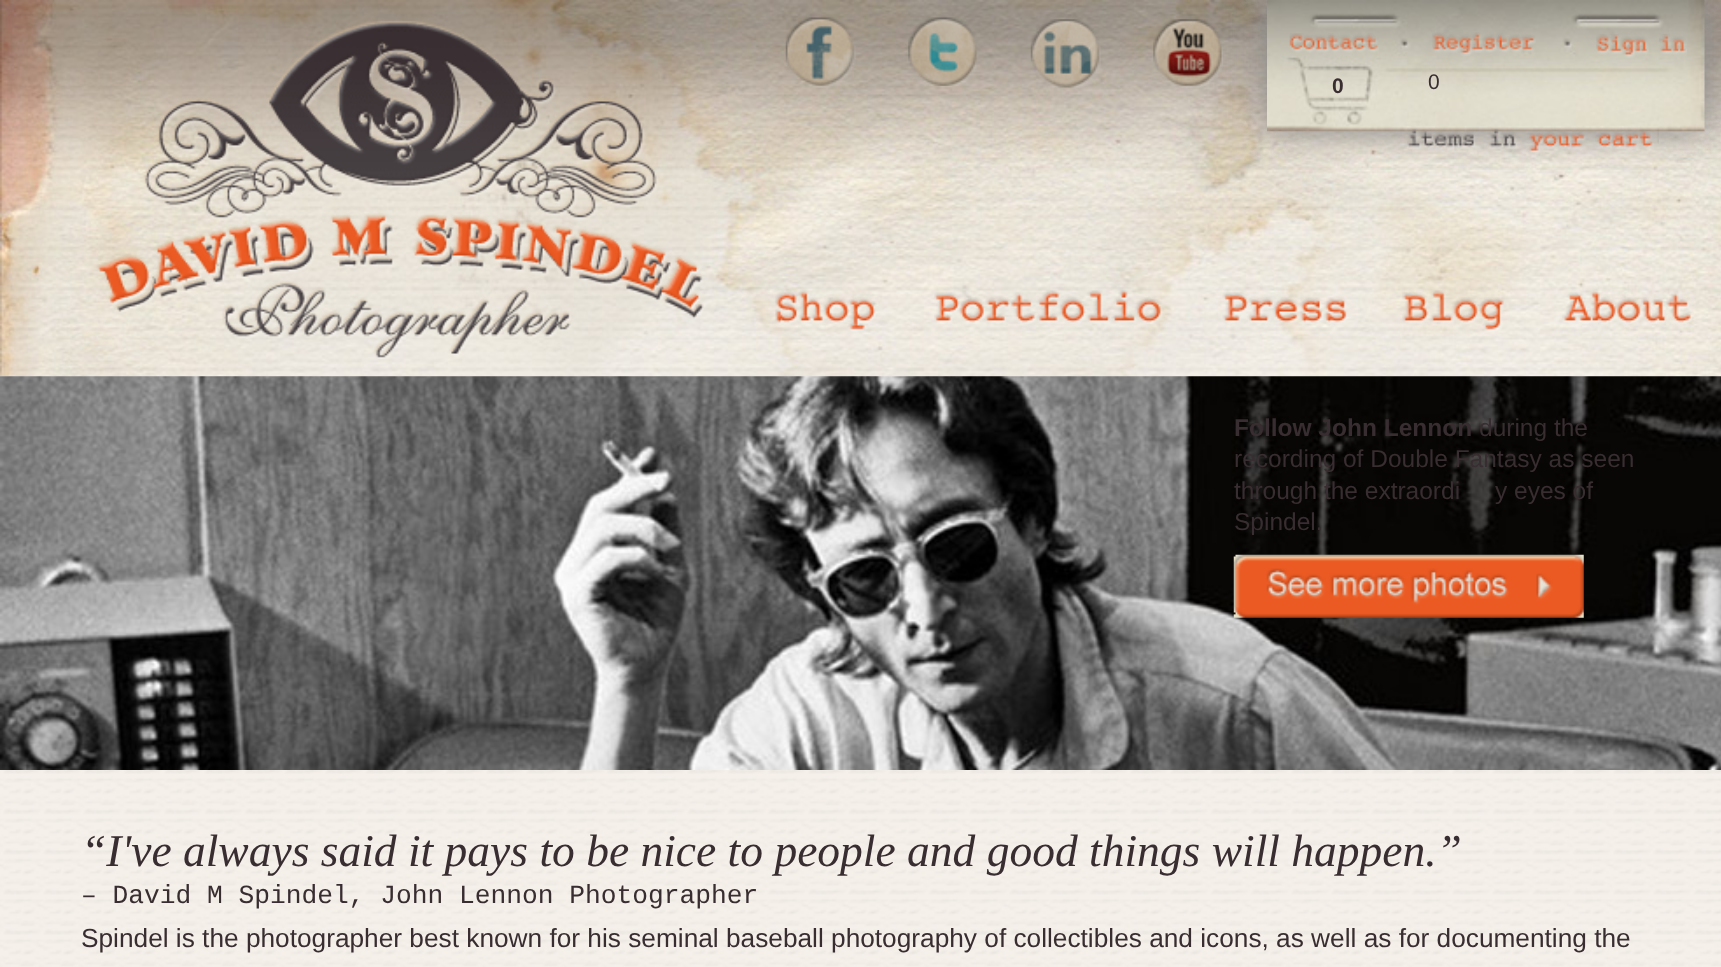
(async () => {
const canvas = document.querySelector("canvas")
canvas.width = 1721
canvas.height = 967
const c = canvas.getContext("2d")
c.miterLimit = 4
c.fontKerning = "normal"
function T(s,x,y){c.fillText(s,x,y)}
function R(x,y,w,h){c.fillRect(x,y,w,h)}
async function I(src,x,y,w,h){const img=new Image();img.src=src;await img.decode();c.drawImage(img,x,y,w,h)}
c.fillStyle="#fff"
R(0,0,1721,967)
await I("1.png",0,376,1721,591)
await I("2.png",0,0,1721,377)
await I("3.png",96,20,608,339)
await I("4.png",785,17,71,71)
await I("5.png",908,17,69,69)
await I("6.png",1030,19,71,69)
await I("7.png",1153,19,70,69)
c.fillStyle="#888"
c.filter="blur(17.5px)"
c.beginPath()
c.rect(1267,0,438,131)
c.fill()
c.filter="none"
await I("8.png",1267,0,438,132)
await I("9.png",1289,33,90,20)
await I("10.png",1432,32,104,24)
await I("11.png",1596,34,91,24)
c.font="bold 21px Liberation Sans"
c.fillStyle="#382d31"
T("0",1332,93)
c.font="21px Liberation Sans"
T("0",1428,89)
await I("12.png",1407,128,252,26)
await I("13.png",775,290,101,42)
await I("14.png",934,290,229,34)
await I("15.png",1222,292,126,32)
await I("16.png",1402,290,103,42)
await I("17.png",1562,290,130,34)
await I("18.png",0,376,1721,394)
c.font="bold 24.5px Liberation Sans"
T("Follow John Lennon",1234,436)
c.font="24.5px Liberation Sans"
T("during the",1479,436)
T("recording of Double Fantasy as seen",1234,467)
T("through the extraordi",1234,499)
T("y eyes of",1495,499)
T("Spindel.",1234,530)
await I("19.png",1233,554,351,64)
c.font="italic 45.5px Liberation Serif"
T("“I've always said it pays to be nice to people and good things will happen.”",81,866)
c.font="26.25px Liberation Mono"
T("– David M Spindel, John Lennon Photographer",81,903)
c.font="26.25px Liberation Sans"
T("Spindel is the photographer best known for his seminal baseball photography of collectibles and icons, as well as for documenting the",81,947)
})()
